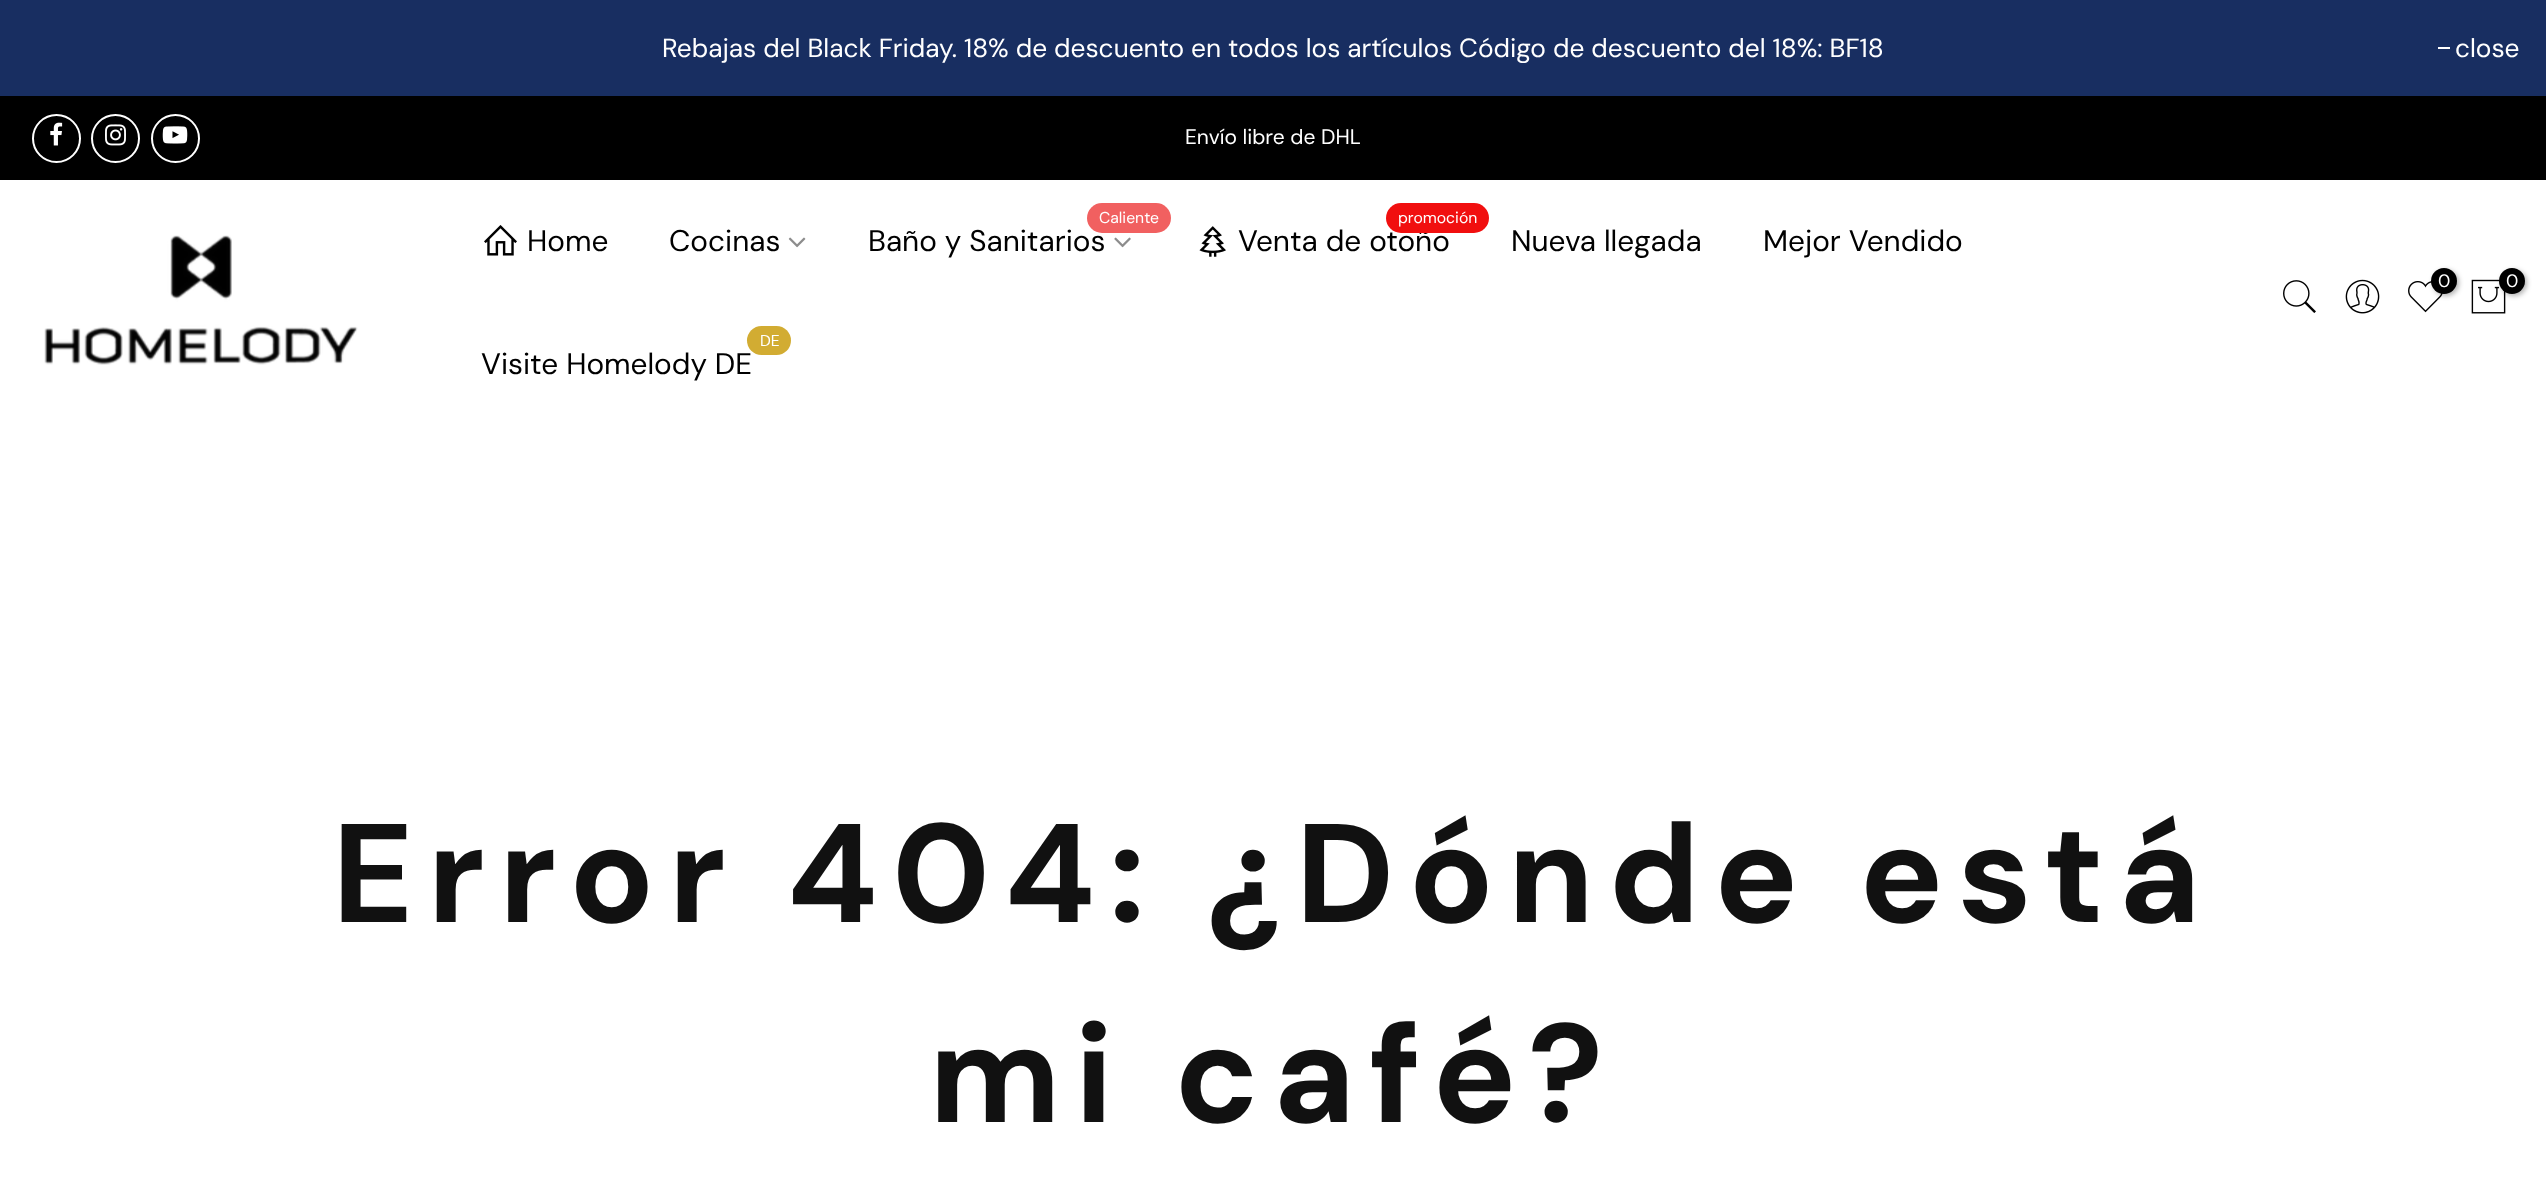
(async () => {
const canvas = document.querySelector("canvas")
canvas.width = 2546
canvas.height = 1199
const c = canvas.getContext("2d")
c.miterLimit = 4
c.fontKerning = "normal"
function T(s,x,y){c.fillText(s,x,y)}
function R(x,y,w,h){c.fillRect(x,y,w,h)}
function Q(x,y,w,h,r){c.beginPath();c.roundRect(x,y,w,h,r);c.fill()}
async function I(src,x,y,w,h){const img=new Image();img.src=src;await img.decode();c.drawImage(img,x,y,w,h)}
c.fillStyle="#fff"
R(0,0,2546,1199)
c.fillStyle="#182e61"
R(0,0,2546,96)
c.font="26.25px DM Sans"
c.fillStyle="#fff"
T("Rebajas del Black Friday. 18% de descuento en todos los artículos Código de descuento del 18%: BF18",662,57)
R(2438,47,12,2)
T("close",2455,57)
c.fillStyle="#000"
R(0,96,2546,84)
c.beginPath()
c.arc(56.5,138.5,23.5,0,7)
c.strokeStyle="#fff"
c.lineWidth=2
c.stroke()
await I("1.png",50,122,13,24)
c.beginPath()
c.arc(115.5,138.5,23.5,0,7)
c.stroke()
await I("2.png",105,124,21,22)
c.beginPath()
c.arc(175.5,138.5,23.5,0,7)
c.stroke()
await I("3.png",162,126,26,18)
c.font="21px DM Sans"
c.fillStyle="#fff"
T("Envío libre de DHL",1185,144)
await I("4.png",44,235,314,130)
await I("5.png",484,225,33,31)
c.font="29.75px DM Sans"
c.fillStyle="#000"
T("Home",527,251)
T("Cocinas",669,251)
await I("6.png",788,237,18,11)
T("Baño y Sanitarios",868,251)
c.fillStyle="#f16060"
Q(1087,203,84,30,15)
c.font="15.75px DM Sans"
c.fillStyle="#fff"
T("Caliente",1099,223)
await I("7.png",1114,237,17,11)
c.font="29.75px DM Sans"
c.fillStyle="#000"
T("Venta de otoño",1238,251)
c.fillStyle="#f10f0f"
Q(1386,203,103,30,15)
c.font="15.75px DM Sans"
c.fillStyle="#fff"
T("promoción",1398,223)
await I("8.png",1199,226,27,31)
c.font="29.75px DM Sans"
c.fillStyle="#000"
T("Nueva llegada",1511,251)
T("Mejor Vendido",1763,251)
T("Visite Homelody DE",481,374)
c.fillStyle="#d2ac32"
Q(747,326,44,29,14.5)
c.font="15.75px DM Sans"
c.fillStyle="#fff"
T("DE",760,346)
await I("9.png",2283,280,33,33)
await I("10.png",2345,279,35,35)
await I("11.png",2408,281,35,32)
c.fillStyle="#0000004d"
c.filter="blur(2.5px)"
c.beginPath()
c.roundRect(2433,270,26,26,13)
c.fill()
c.filter="none"
c.fillStyle="#000"
c.beginPath()
c.arc(2444,281,13,0,7)
c.fill()
c.font="18px DM Sans"
c.fillStyle="#fff"
T("0",2438,287)
await I("12.png",2471,279,35,35)
c.fillStyle="#0000004d"
c.filter="blur(2.5px)"
c.beginPath()
c.roundRect(2501,270,26,26,13)
c.fill()
c.filter="none"
c.fillStyle="#000"
c.beginPath()
c.arc(2512,281,13,0,7)
c.fill()
c.fillStyle="#fff"
T("0",2506,287)
c.letterSpacing="14px"
c.font="bold 140px DM Sans"
c.fillStyle="#111"
T("Error 404: ¿Dónde está",332,922)
T("mi café?",929,1122)
})()
